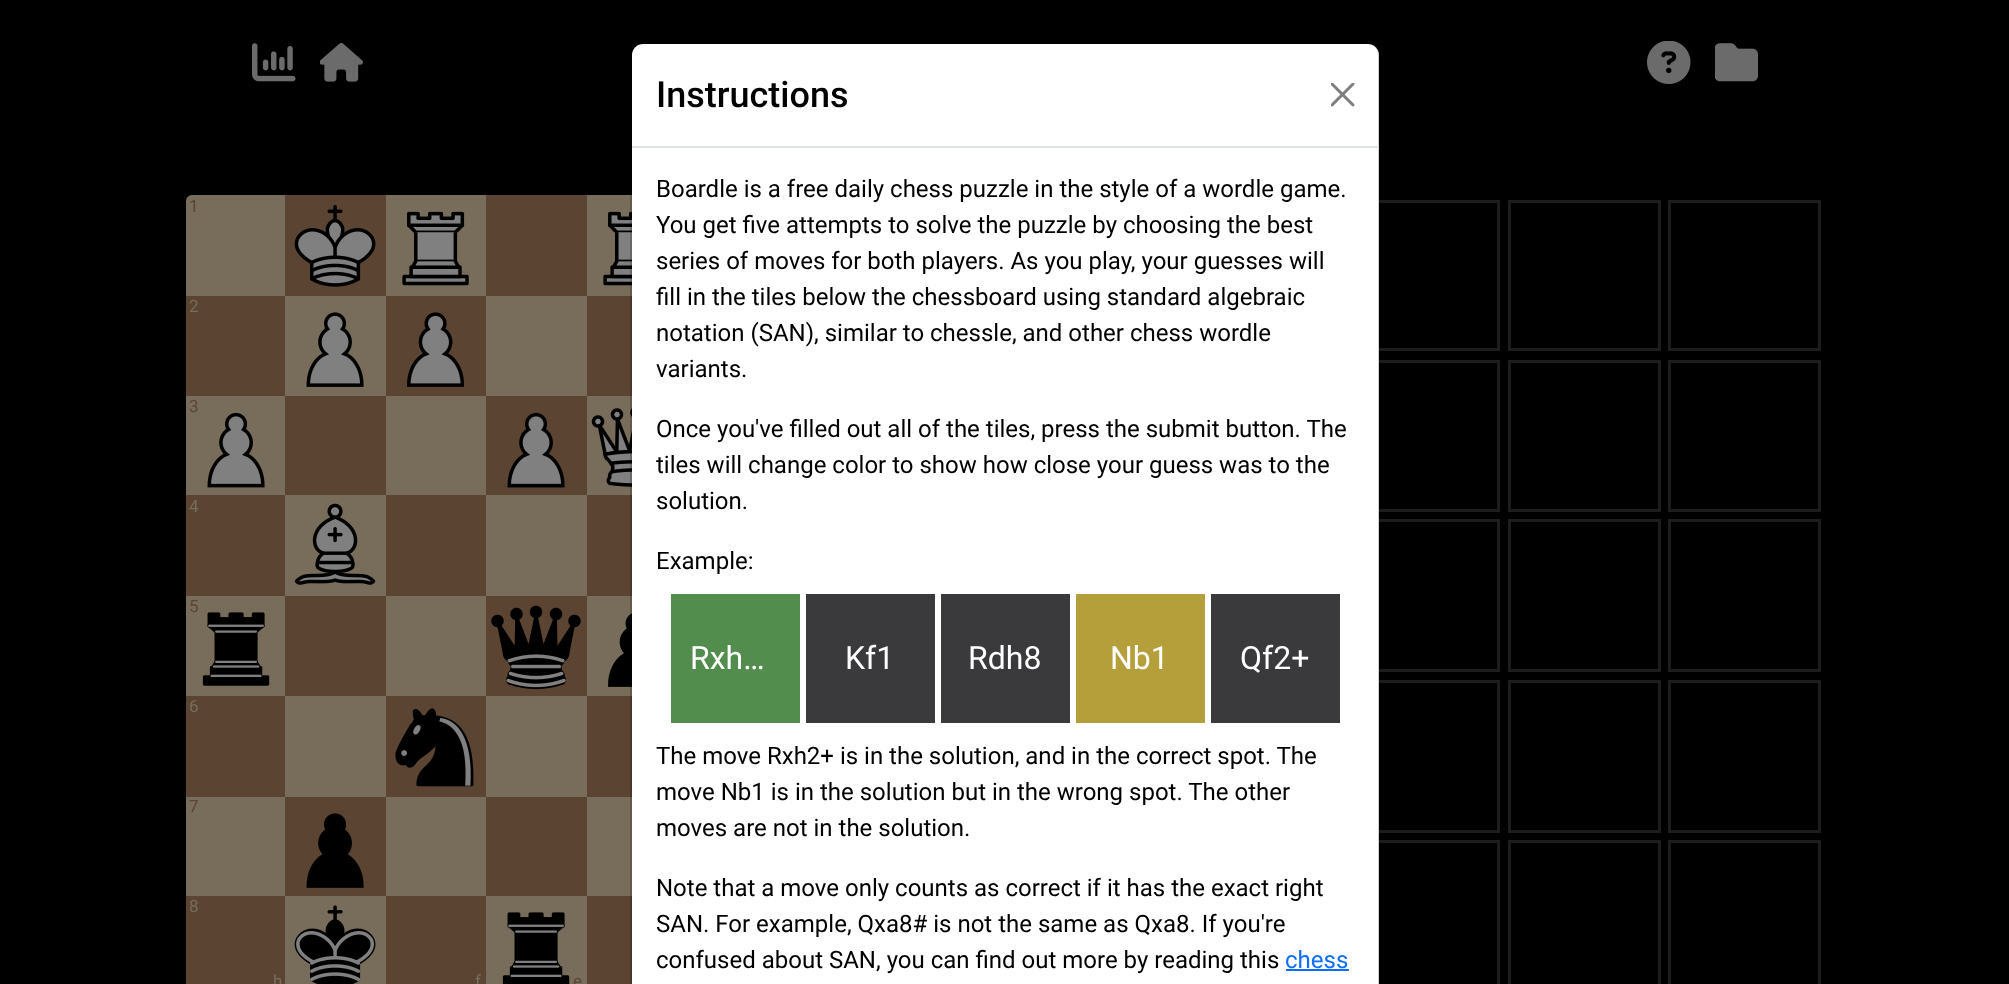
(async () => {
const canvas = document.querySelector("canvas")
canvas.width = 2009
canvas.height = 984
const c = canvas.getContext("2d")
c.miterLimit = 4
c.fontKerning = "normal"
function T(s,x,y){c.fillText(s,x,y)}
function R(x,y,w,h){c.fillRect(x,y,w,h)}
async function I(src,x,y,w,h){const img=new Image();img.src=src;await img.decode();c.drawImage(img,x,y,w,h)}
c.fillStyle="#000"
R(0,0,2009,984)
await I("1.png",252,43,44,39)
await I("2.png",320,42,43,40)
await I("3.png",1647,41,44,43)
await I("4.png",1715,43,43,39)
c.fillStyle="#786d5b"
c.beginPath()
c.roundRect(186,195,99,101,[6,0,0,0])
c.fill()
c.font="17px Roboto"
c.fillStyle="#5b4432"
T("1",189,212)
R(285,195,101,101)
await I("5.png",294,204,82,83)
c.fillStyle="#786d5b"
R(386,195,100,101)
await I("6.png",402,211,67,75)
c.fillStyle="#5b4432"
R(486,195,101,101)
c.fillStyle="#786d5b"
R(587,195,45,101)
await I("7.png",603,211,29,75)
c.fillStyle="#5b4432"
R(186,296,99,100)
c.fillStyle="#786d5b"
T("2",189,312)
R(285,296,101,100)
await I("8.png",306,312,58,75)
c.fillStyle="#5b4432"
R(386,296,100,100)
await I("9.png",407,312,58,75)
c.fillStyle="#786d5b"
R(486,296,101,100)
c.fillStyle="#5b4432"
R(587,296,45,100)
c.fillStyle="#786d5b"
R(186,396,99,99)
c.fillStyle="#5b4432"
T("3",189,412)
await I("10.png",207,412,58,76)
R(285,396,101,99)
c.fillStyle="#786d5b"
R(386,396,100,99)
c.fillStyle="#5b4432"
R(486,396,101,99)
await I("11.png",507,412,58,76)
c.fillStyle="#786d5b"
R(587,396,45,99)
await I("12.png",591,408,41,79)
c.fillStyle="#5b4432"
R(186,495,99,101)
c.fillStyle="#786d5b"
T("4",189,512)
R(285,495,101,101)
await I("13.png",294,503,82,82)
c.fillStyle="#5b4432"
R(386,495,100,101)
c.fillStyle="#786d5b"
R(486,495,101,101)
c.fillStyle="#5b4432"
R(587,495,45,101)
c.fillStyle="#786d5b"
R(186,596,99,100)
c.fillStyle="#5b4432"
T("5",189,612)
await I("14.png",202,612,68,74)
R(285,596,101,100)
c.fillStyle="#786d5b"
R(386,596,100,100)
c.fillStyle="#5b4432"
R(486,596,101,100)
await I("15.png",491,605,90,85)
c.fillStyle="#786d5b"
R(587,596,45,100)
await I("16.png",608,613,24,74)
c.fillStyle="#5b4432"
R(186,696,99,101)
c.fillStyle="#786d5b"
T("6",189,712)
R(285,696,101,101)
c.fillStyle="#5b4432"
R(386,696,100,101)
await I("17.png",395,708,79,79)
c.fillStyle="#786d5b"
R(486,696,101,101)
c.fillStyle="#5b4432"
R(587,696,45,101)
c.fillStyle="#786d5b"
R(186,797,99,99)
c.fillStyle="#5b4432"
T("7",189,812)
R(285,797,101,99)
await I("18.png",306,813,58,75)
c.fillStyle="#786d5b"
R(386,797,100,99)
c.fillStyle="#5b4432"
R(486,797,101,99)
c.fillStyle="#786d5b"
R(587,797,45,99)
c.fillStyle="#5b4432"
R(186,896,99,88)
c.fillStyle="#786d5b"
T("8",189,912)
T("h",273,987)
R(285,896,101,88)
await I("19.png",294,905,82,79)
c.fillStyle="#5b4432"
R(386,896,100,88)
c.fillStyle="#786d5b"
T("f",475,987)
R(486,896,101,88)
await I("20.png",502,912,68,72)
c.fillStyle="#5b4432"
T("e",573,987)
R(587,896,45,88)
c.strokeStyle="#1d1d1e"
c.lineWidth=3
c.strokeRect(1348.5,201.5,150,148)
c.strokeRect(1509.5,201.5,150,148)
c.strokeRect(1669.5,201.5,150,148)
c.strokeRect(1348.5,361.5,150,149)
c.strokeRect(1509.5,361.5,150,149)
c.strokeRect(1669.5,361.5,150,149)
c.strokeRect(1348.5,520.5,150,150)
c.strokeRect(1509.5,520.5,150,150)
c.strokeRect(1669.5,520.5,150,150)
c.strokeRect(1348.5,681.5,150,150)
c.strokeRect(1509.5,681.5,150,150)
c.strokeRect(1669.5,681.5,150,150)
c.strokeRect(1348.5,841.5,150,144)
c.strokeRect(1509.5,841.5,150,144)
c.strokeRect(1669.5,841.5,150,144)
c.fillStyle="#fff"
c.beginPath()
c.roundRect(632,44,747,940,[11,11,0,0])
c.fill()
c.beginPath()
c.roundRect(631,43,748,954,11)
c.strokeStyle="#0000002e"
c.lineWidth=2
c.stroke()
c.fillStyle="#dee2e6"
R(632,146,747,2)
c.font="500 36px Roboto"
c.fillStyle="#000"
T("Instructions",656,107)
await I("21.png",1331,83,24,24)
c.font="24px Roboto"
T("Boardle is a free daily chess puzzle in the style of a wordle game.",656,197)
T("You get five attempts to solve the puzzle by choosing the best",656,233)
T("series of moves for both players. As you play, your guesses will",656,269)
T("fill in the tiles below the chessboard using standard algebraic",656,305)
T("notation (SAN), similar to chessle, and other chess wordle",656,341)
T("variants.",656,377)
T("Once you've filled out all of the tiles, press the submit button. The",656,437)
T("tiles will change color to show how close your guess was to the",656,473)
T("solution.",656,509)
T("Example:",656,569)
c.fillStyle="#538d4e"
R(671,594,129,129)
c.font="32px Roboto"
c.fillStyle="#fff"
T("Rxh…",690,669)
c.fillStyle="#3a3a3c"
R(806,594,129,129)
c.fillStyle="#fff"
T("Kf1",845,669)
c.fillStyle="#3a3a3c"
R(941,594,129,129)
c.fillStyle="#fff"
T("Rdh8",968,669)
c.fillStyle="#b59f3b"
R(1076,594,129,129)
c.fillStyle="#fff"
T("Nb1",1110,669)
c.fillStyle="#3a3a3c"
R(1211,594,129,129)
c.fillStyle="#fff"
T("Qf2+",1240,669)
c.font="24px Roboto"
c.fillStyle="#000"
T("The move Rxh2+ is in the solution, and in the correct spot. The",656,764)
T("move Nb1 is in the solution but in the wrong spot. The other",656,800)
T("moves are not in the solution.",656,836)
T("Note that a move only counts as correct if it has the exact right",656,896)
T("SAN. For example, Qxa8# is not the same as Qxa8. If you're",656,932)
T("confused about SAN, you can find out more by reading this",656,968)
c.fillStyle="#0d6efd"
T("chess",1285,968)
R(1286,969,63,2)
})()
